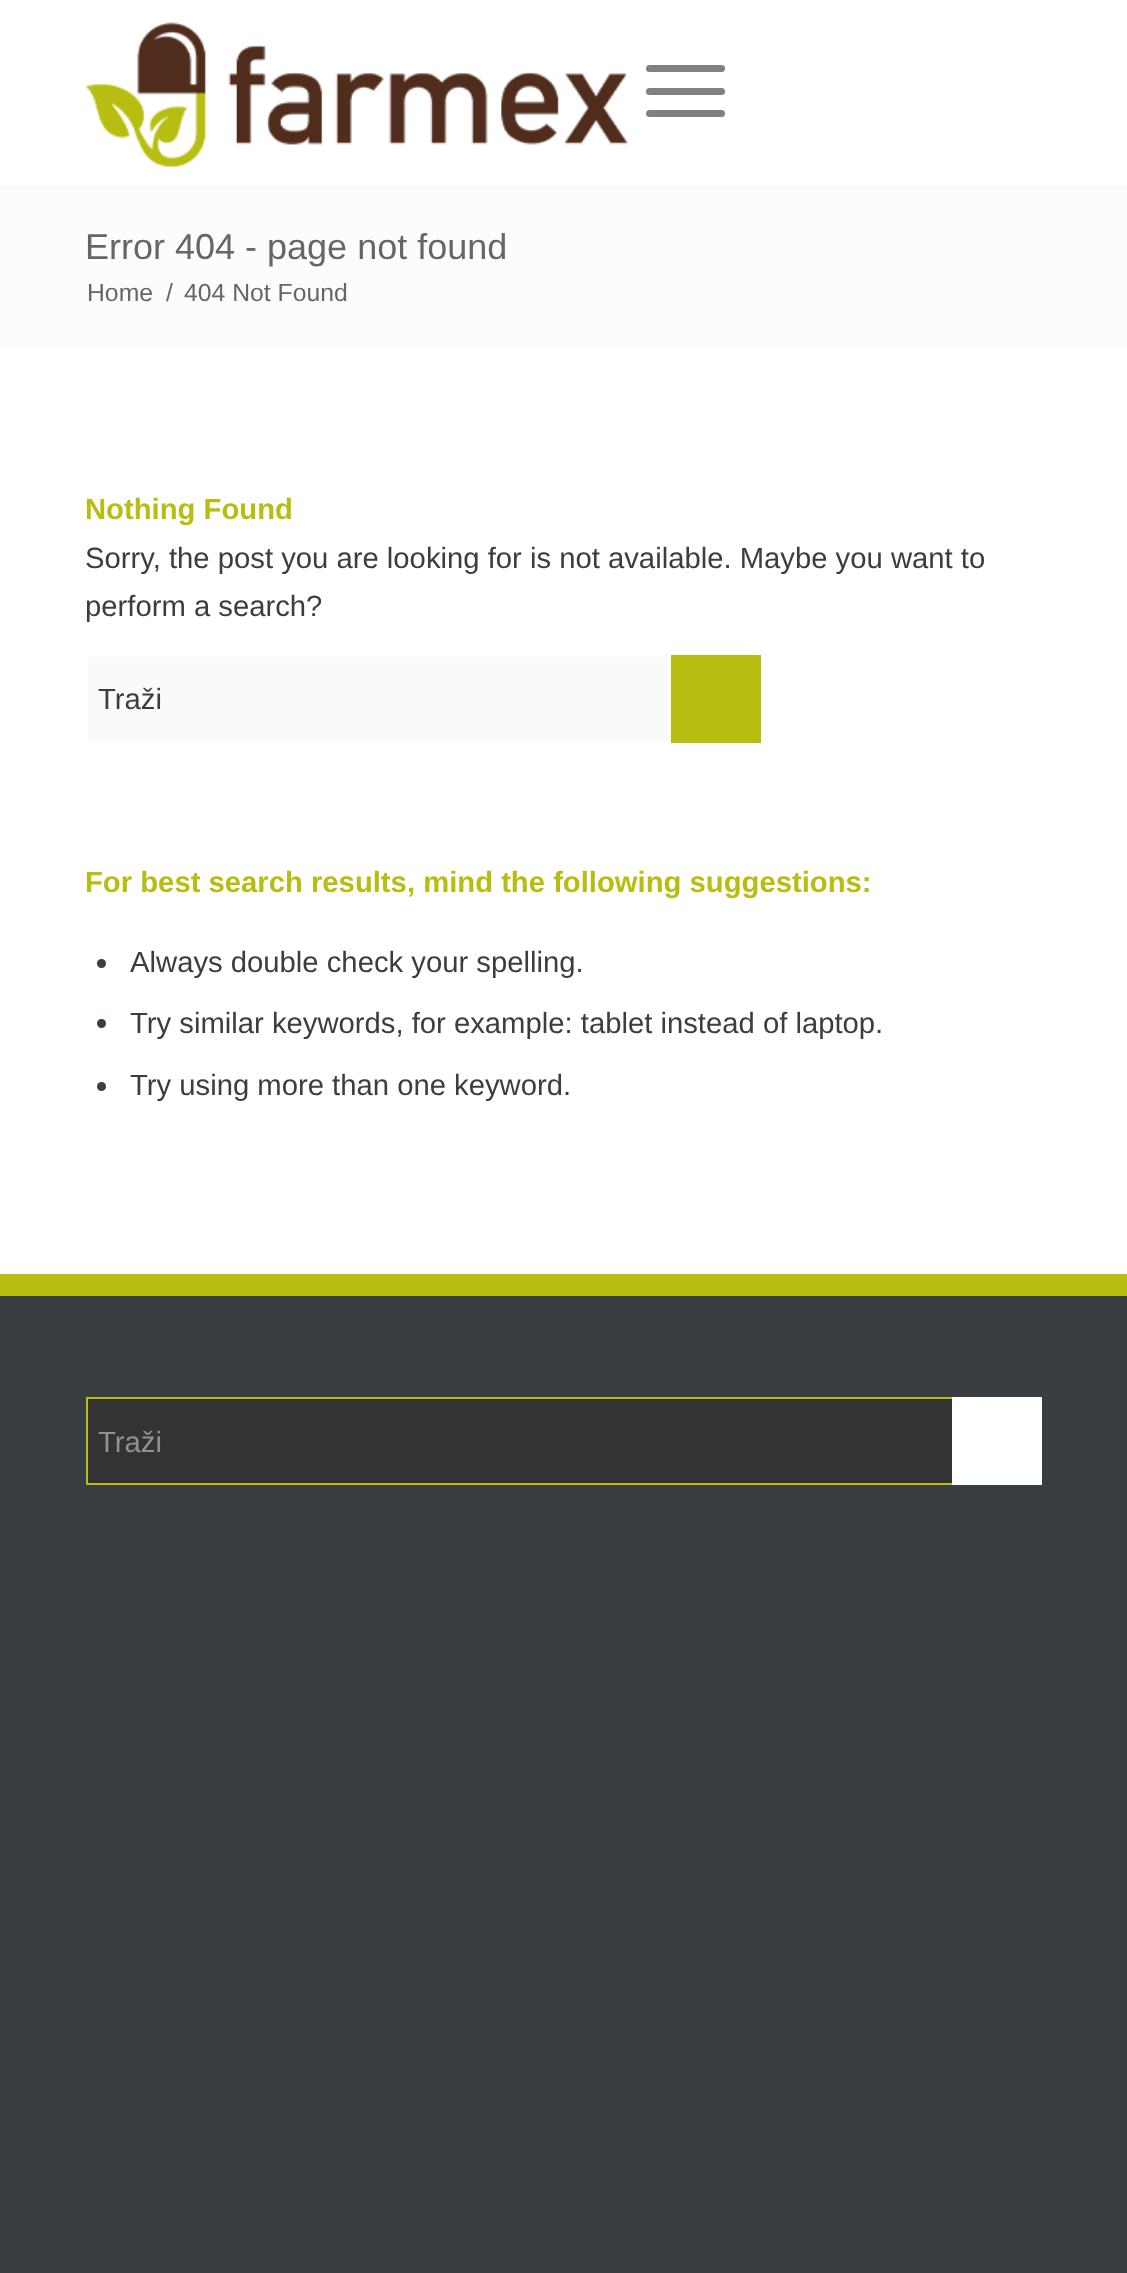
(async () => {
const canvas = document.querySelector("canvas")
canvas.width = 1127
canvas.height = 2273
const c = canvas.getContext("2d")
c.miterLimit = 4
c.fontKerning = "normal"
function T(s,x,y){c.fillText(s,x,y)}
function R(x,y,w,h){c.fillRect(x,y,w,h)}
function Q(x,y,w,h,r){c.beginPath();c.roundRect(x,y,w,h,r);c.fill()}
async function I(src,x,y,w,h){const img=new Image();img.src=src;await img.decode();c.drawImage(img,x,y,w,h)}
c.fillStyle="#fff"
R(0,0,1127,2273)
await I("1.png",85,22,543,145)
c.fillStyle="#808080"
Q(646,88,79,7,3.5)
Q(646,65,79,7,3.5)
Q(646,110,79,7,3.5)
c.fillStyle="#fcfcfc"
R(0,185,1127,162)
c.font="36px Liberation Sans"
c.fillStyle="#666"
T("Error 404 - page not found",85,259)
c.font="24.75px Liberation Sans"
T("Home",87,301)
T("/",166,301)
T("404 Not Found",184,301)
c.font="bold 29.25px Liberation Sans"
c.fillStyle="#b7be11"
T("Nothing Found",85,519)
c.font="29.25px Liberation Sans"
c.fillStyle="#383e42"
T("Sorry, the post you are looking for is not available. Maybe you want to",85,568)
T("perform a search?",85,616)
c.fillStyle="#fafafa"
R(88,657,583,84)
c.fillStyle="#383e42"
T("Traži",98,709)
c.fillStyle="#b7be11"
R(671,655,90,88)
c.font="bold 29.25px Liberation Sans"
T("For best search results, mind the following suggestions:",85,892)
c.fillStyle="#383e42"
c.beginPath()
c.arc(101.5,963.5,4.5,0,7)
c.fill()
c.font="29.25px Liberation Sans"
T("Always double check your spelling.",130,972)
c.beginPath()
c.arc(101.5,1023.5,4.5,0,7)
c.fill()
T("Try similar keywords, for example: tablet instead of laptop.",130,1033)
c.beginPath()
c.arc(101.5,1086.5,4.5,0,7)
c.fill()
T("Try using more than one keyword.",130,1095)
R(0,1296,1127,977)
c.fillStyle="#b7be11"
R(0,1274,1127,22)
c.fillStyle="#333"
R(88,1399,864,84)
c.strokeStyle="#b8be11"
c.lineWidth=2
c.strokeRect(87,1398,954,86)
c.fillStyle="#919191"
T("Traži",98,1452)
c.fillStyle="#fff"
R(952,1397,90,88)
})()
